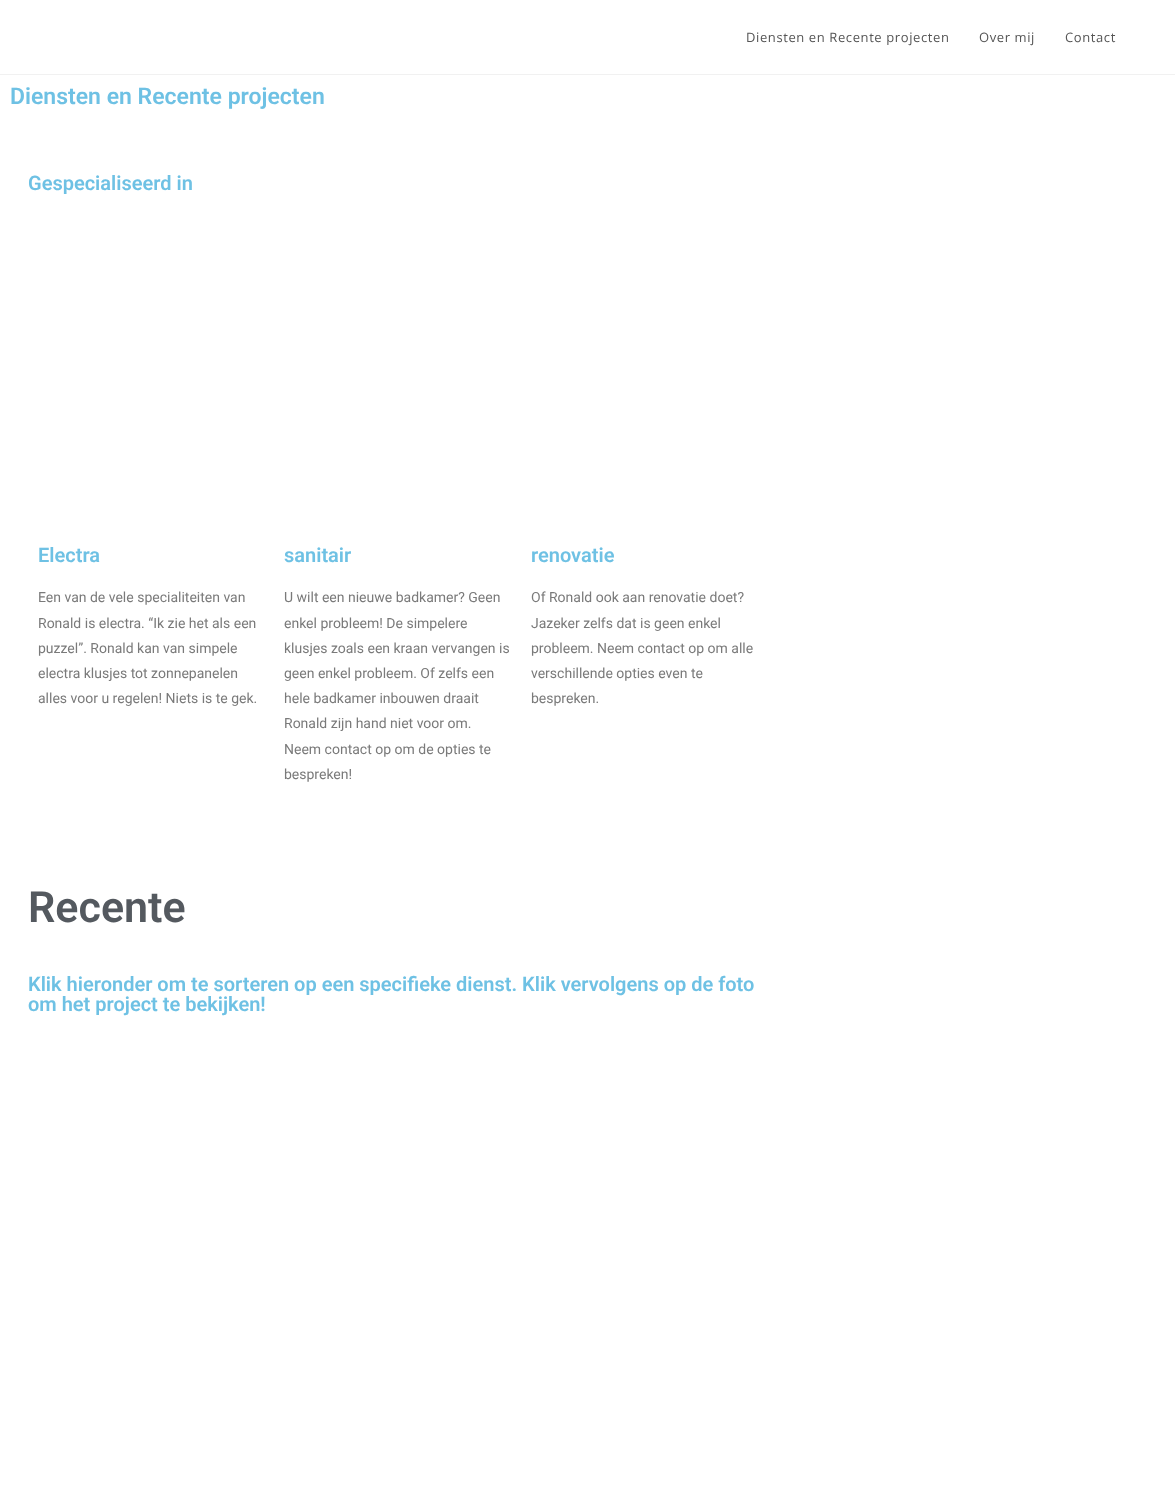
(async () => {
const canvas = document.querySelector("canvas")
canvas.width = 1175
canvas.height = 1499
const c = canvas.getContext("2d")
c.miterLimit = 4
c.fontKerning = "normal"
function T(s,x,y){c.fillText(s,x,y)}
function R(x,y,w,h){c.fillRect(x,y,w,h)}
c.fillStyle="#fff"
R(0,0,1175,1499)
c.fillStyle="#f1f1f1"
R(0,74,1175,1)
c.letterSpacing="0.6px"
c.font="13px Open Sans"
c.fillStyle="#555"
T("Diensten en Recente projecten",746,42)
T("Over mij",979,42)
T("Contact",1065,42)
c.letterSpacing="0px"
c.font="600 23px Roboto"
c.fillStyle="#6ec1e4"
T("Diensten en Recente projecten",10,104)
c.font="600 20px Roboto"
T("Gespecialiseerd in",28,190)
T("Electra",38,562)
c.font="14px Roboto"
c.fillStyle="#7a7a7a"
T("Een van de vele specialiteiten van",38,602)
T("Ronald is electra. “Ik zie het als een",38,628)
T("puzzel”. Ronald kan van simpele",38,653)
T("electra klusjes tot zonnepanelen",38,678)
T("alles voor u regelen! Niets is te gek.",38,703)
c.font="600 20px Roboto"
c.fillStyle="#6ec1e4"
T("sanitair",284,562)
c.font="14px Roboto"
c.fillStyle="#7a7a7a"
T("U wilt een nieuwe badkamer? Geen",284,602)
T("enkel probleem! De simpelere",284,628)
T("klusjes zoals een kraan vervangen is",284,653)
T("geen enkel probleem. Of zelfs een",284,678)
T("hele badkamer inbouwen draait",284,703)
T("Ronald zijn hand niet voor om.",284,728)
T("Neem contact op om de opties te",284,754)
T("bespreken!",284,779)
c.font="600 20px Roboto"
c.fillStyle="#6ec1e4"
T("renovatie",531,562)
c.font="14px Roboto"
c.fillStyle="#7a7a7a"
T("Of Ronald ook aan renovatie doet?",531,602)
T("Jazeker zelfs dat is geen enkel",531,628)
T("probleem. Neem contact op om alle",531,653)
T("verschillende opties even te",531,678)
T("bespreken.",531,703)
c.font="600 43px Roboto"
c.fillStyle="#54595f"
T("Recente",28,922)
c.font="600 20px Roboto"
c.fillStyle="#6ec1e4"
T("Klik hieronder om te sorteren op een specifieke dienst. Klik vervolgens op de foto",28,991)
T("om het project te bekijken!",28,1011)
})()
